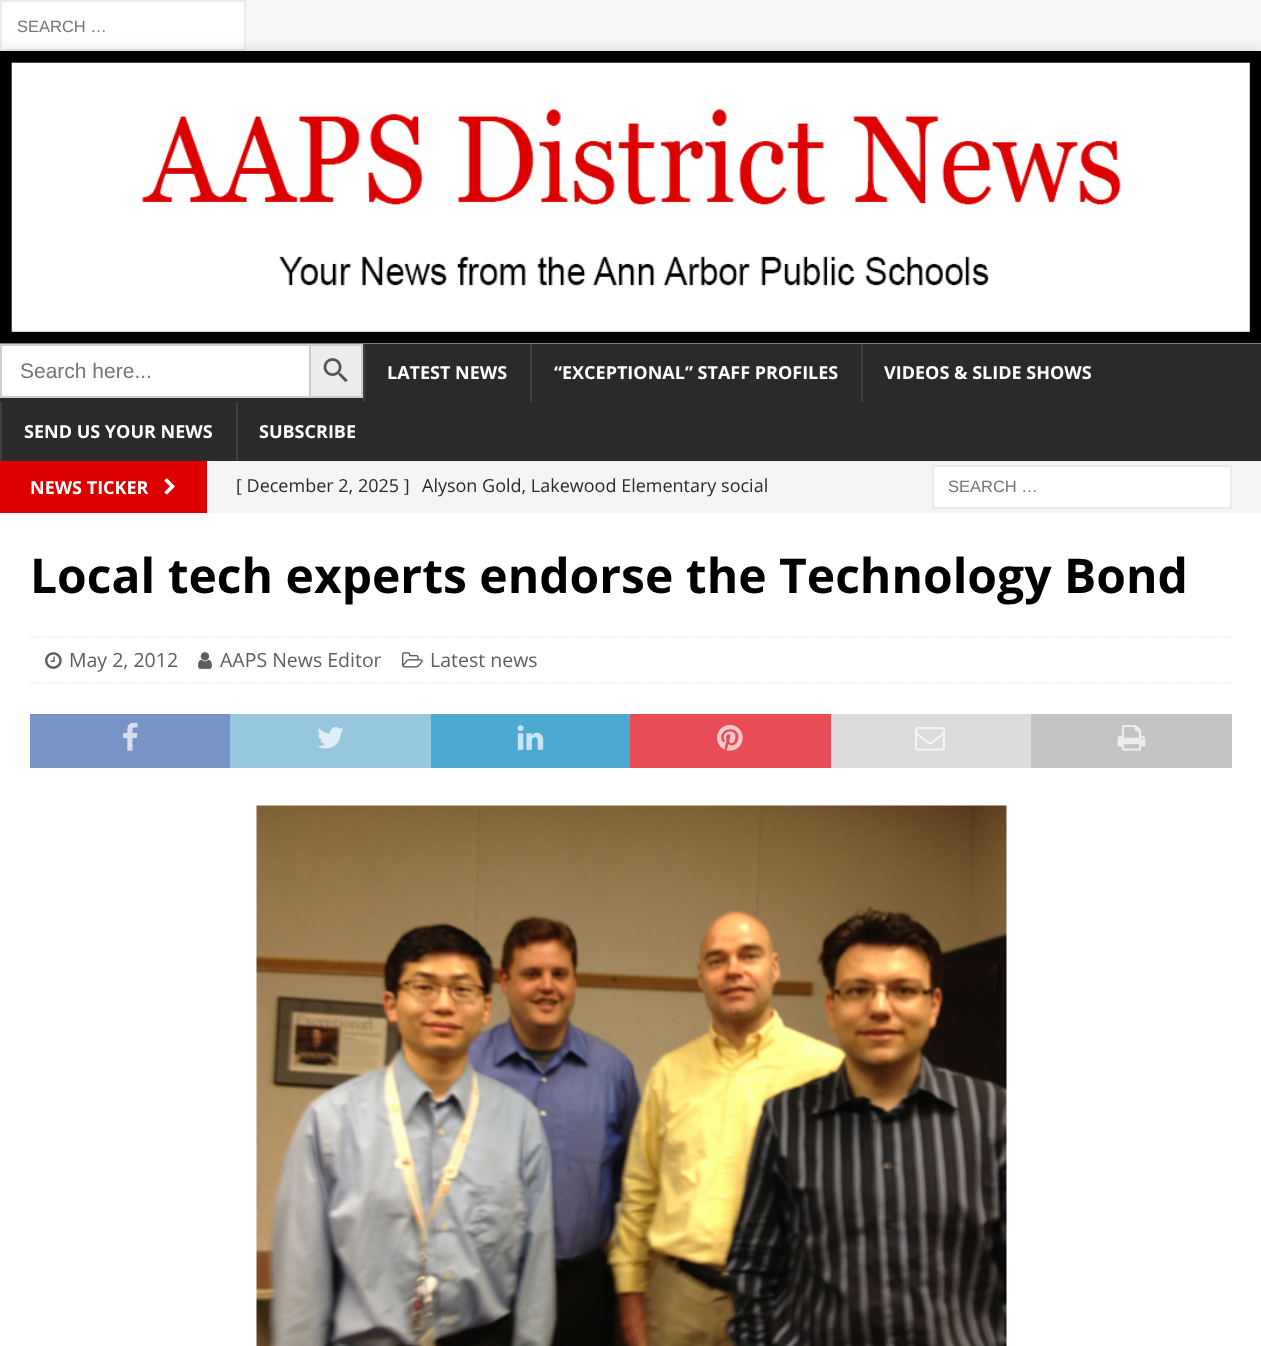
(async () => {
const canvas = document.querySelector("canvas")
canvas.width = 1261
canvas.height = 1346
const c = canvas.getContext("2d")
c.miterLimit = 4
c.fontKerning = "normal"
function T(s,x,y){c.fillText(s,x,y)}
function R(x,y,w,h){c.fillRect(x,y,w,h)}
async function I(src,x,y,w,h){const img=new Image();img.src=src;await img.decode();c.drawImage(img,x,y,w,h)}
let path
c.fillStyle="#f7f7f7"
R(0,0,1261,1346)
c.fillStyle="#fff"
c.beginPath()
c.rect(1,1,244,49)
c.fill()
c.strokeStyle="#ebebeb"
c.lineWidth=2
c.stroke()
c.font="16.5px Liberation Sans"
c.fillStyle="#757575"
T("SEARCH …",17,32)
c.fillStyle="#3232322b"
c.filter="blur(7.5px)"
c.beginPath()
c.rect(0,51,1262,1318)
c.fill()
c.filter="none"
c.fillStyle="#fff"
R(0,343,1261,1)
await I("1.png",0,51,1261,293)
c.fillStyle="#2a2a2a"
R(0,344,1261,117)
c.fillStyle="#fff"
R(2,346,307,50)
c.fillStyle="#ccc"
R(0,344,309,2)
R(0,396,309,2)
R(0,344,2,54)
c.font="21px Liberation Sans"
c.fillStyle="#757575"
T("Search here...",20,378)
c.fillStyle="#ededed"
c.beginPath()
c.rect(310,345,52,52)
c.fill()
c.strokeStyle="#ccc"
c.stroke()
await I("2.png",323,358,25,25)
c.fillStyle="#3f3f3f"
R(363,344,2,58)
c.font="bold 18px Open Sans"
c.fillStyle="#fff"
T("LATEST NEWS",387,379)
c.fillStyle="#3f3f3f"
R(530,344,2,58)
c.fillStyle="#fff"
T("“EXCEPTIONAL” STAFF PROFILES",554,379)
c.fillStyle="#3f3f3f"
R(861,344,2,58)
c.fillStyle="#fff"
T("VIDEOS & SLIDE SHOWS",884,379)
c.fillStyle="#3f3f3f"
R(0,402,2,59)
c.fillStyle="#fff"
T("SEND US YOUR NEWS",24,438)
c.fillStyle="#3f3f3f"
R(236,402,2,59)
c.fillStyle="#fff"
T("SUBSCRIBE",259,438)
c.fillStyle="#f5f5f5"
R(207,461,1054,52)
c.fillStyle="#d00"
R(0,461,207,52)
c.fillStyle="#fff"
T("NEWS TICKER",30,494)
await I("3.png",164,478,11,17)
c.font="18px Open Sans"
c.fillStyle="#2a2a2a"
T("[ December 2, 2025 ]",236,492)
T("Alyson Gold, Lakewood Elementary social",422,492)
c.fillStyle="#fff"
c.beginPath()
c.rect(933,466,298,42)
c.fill()
c.strokeStyle="#ebebeb"
c.stroke()
c.font="16.5px Liberation Sans"
c.fillStyle="#757575"
T("SEARCH …",948,492)
c.fillStyle="#fff"
R(0,513,1261,833)
c.font="bold 48px Open Sans"
c.fillStyle="#000"
T("Local tech experts endorse the Technology Bond",30,593)
path = new Path2D("M30 637h1201.5")
c.lineWidth=1.5
c.setLineDash([1.5,1.5])
c.stroke(path)
path = new Path2D("M30 683h1201.5")
c.stroke(path)
await I("4.png",45,652,17,17)
c.font="19.5px Open Sans"
c.fillStyle="#5e5e5e"
T("May 2, 2012",69,667)
await I("5.png",198,652,14,17)
T("AAPS News Editor",220,667)
await I("6.png",402,652,21,16)
T("Latest news",430,667)
c.fillStyle="#7893c6"
R(30,714,200,54)
await I("7.png",123,722,15,29)
c.fillStyle="#97c6df"
R(230,714,201,54)
await I("8.png",317,727,27,22)
c.fillStyle="#4da9d2"
R(431,714,199,54)
await I("9.png",517,725,27,25)
c.fillStyle="#e84d56"
R(630,714,201,54)
await I("10.png",717,724,26,27)
c.fillStyle="#dbdbdb"
R(831,714,200,54)
await I("11.png",915,727,30,24)
c.fillStyle="#c4c4c4"
R(1031,714,201,54)
await I("12.png",1117,725,29,26)
await I("13.png",256,805,751,541)
})()
